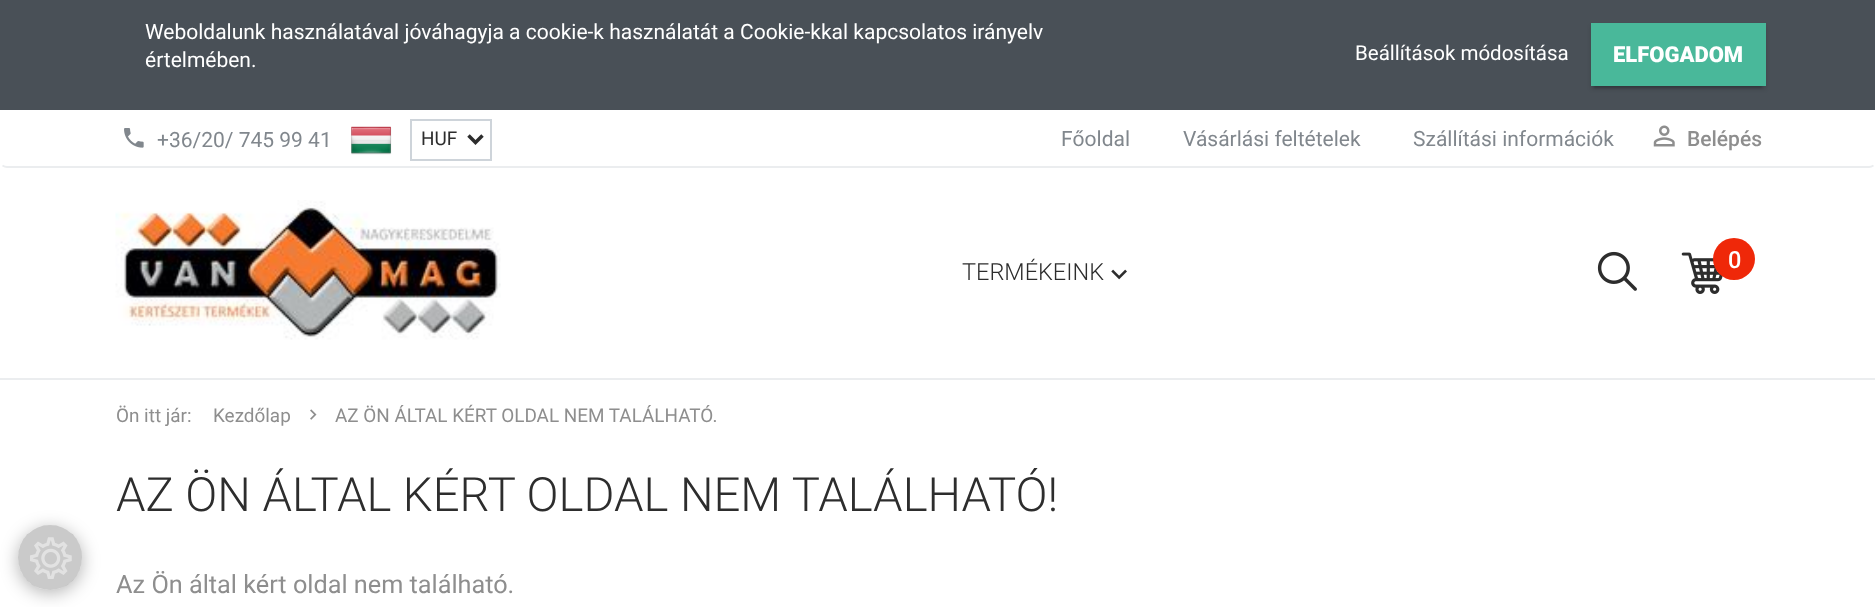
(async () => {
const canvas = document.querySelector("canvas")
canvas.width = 1875
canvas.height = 607
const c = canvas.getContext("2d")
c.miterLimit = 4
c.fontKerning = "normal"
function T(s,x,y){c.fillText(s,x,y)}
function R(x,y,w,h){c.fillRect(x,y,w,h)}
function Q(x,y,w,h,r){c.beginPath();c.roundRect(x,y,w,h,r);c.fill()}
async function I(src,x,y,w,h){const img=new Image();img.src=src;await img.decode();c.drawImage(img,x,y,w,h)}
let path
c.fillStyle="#fff"
R(0,0,1875,607)
c.fillStyle="#495057"
R(0,0,1875,110)
c.font="21px Roboto"
c.fillStyle="#fff"
T("Weboldalunk használatával jóváhagyja a cookie-k használatát a Cookie-kkal kapcsolatos irányelv",145,39)
T("értelmében.",145,67)
c.font="20.5px Roboto"
T("Beállítások módosítása",1355,60)
c.fillStyle="#00000033"
c.filter="blur(1px)"
c.beginPath()
c.rect(1594,32,168,56)
c.fill()
c.filter="none"
c.fillStyle="#00000024"
c.filter="blur(2px)"
c.beginPath()
c.rect(1591,26,175,63)
c.fill()
c.filter="none"
c.fillStyle="#49b89a"
R(1591,23,175,63)
c.font="900 22px Roboto"
c.fillStyle="#fff"
T("ELFOGADOM",1613,62)
c.save()
path = new Path2D("M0 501h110v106h-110zm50 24c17.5 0 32 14.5 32 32v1c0 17.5-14.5 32-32 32c-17.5 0-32-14.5-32-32v-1c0-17.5 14.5-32 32-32z")
c.clip(path,"evenodd")
c.fillStyle="#0000004d"
c.filter="blur(9px)"
c.beginPath()
c.roundRect(18,529,64,64,32)
c.fill()
c.filter="none"
c.restore()
c.fillStyle="#4e4e4e4d"
Q(18,525,64,65,32)
await I("1.png",30,537,42,42)
path = new Path2D("M1873.5 165.5c-1.5 1-3 1.5-4.5 1.5h-1862c-1.5 0-3-.5-4.5-1.5")
c.strokeStyle="#ebedef"
c.lineWidth=1.8
c.stroke(path)
await I("2.png",124,128,20,20)
c.font="21px Roboto"
c.fillStyle="#81878d"
T("+36/20/ 745 99 41",157,147)
await I("3.png",351,126,41,29)
c.strokeStyle="#ced4da"
c.lineWidth=2
c.strokeRect(411,120,80,40)
path = new Path2D("M468.5 135.5l7 7l7-7")
c.strokeStyle="#2d2d2d"
c.lineWidth=3.5
c.stroke(path)
c.font="18.9px Roboto"
c.fillStyle="#2d2d2d"
T("HUF",421,145)
c.font="21px Roboto"
c.fillStyle="#81878d"
T("Főoldal",1061,146)
T("Vásárlási feltételek",1183,146)
T("Szállítási információk",1413,146)
await I("4.png",1653,125,22,22)
c.font="500 21px Roboto"
c.fillStyle="#8e8e8e"
T("Belépés",1687,146)
c.fillStyle="#ebedef"
R(0,378,1875,2)
await I("5.png",115,200,386,140)
c.font="300 23.5px Roboto"
c.fillStyle="#2d2d2d"
T("TERMÉKEINK",962,280)
await I("6.png",1111,269,16,11)
await I("7.png",1597,251,40,40)
await I("8.png",1681,252,42,42)
c.fillStyle="#ef2809"
c.beginPath()
c.arc(1734,259,21,0,7)
c.fill()
c.font="500 23.5px Roboto"
c.fillStyle="#fff"
T("0",1728,268)
c.font="18.9px Roboto"
c.fillStyle="#8e8e8e"
T("Ön itt jár:",116,422)
T("Kezdőlap",213,422)
await I("9.png",310,409,7,11)
T("AZ ÖN ÁLTAL KÉRT OLDAL NEM TALÁLHATÓ.",335,422)
c.font="300 47.25px Roboto"
c.fillStyle="#2d2d2d"
T("AZ ÖN ÁLTAL KÉRT OLDAL NEM TALÁLHATÓ!",116,511)
c.font="25.25px Roboto"
c.fillStyle="#8e8e8e"
T("Az Ön által kért oldal nem található.",116,593)
})()
